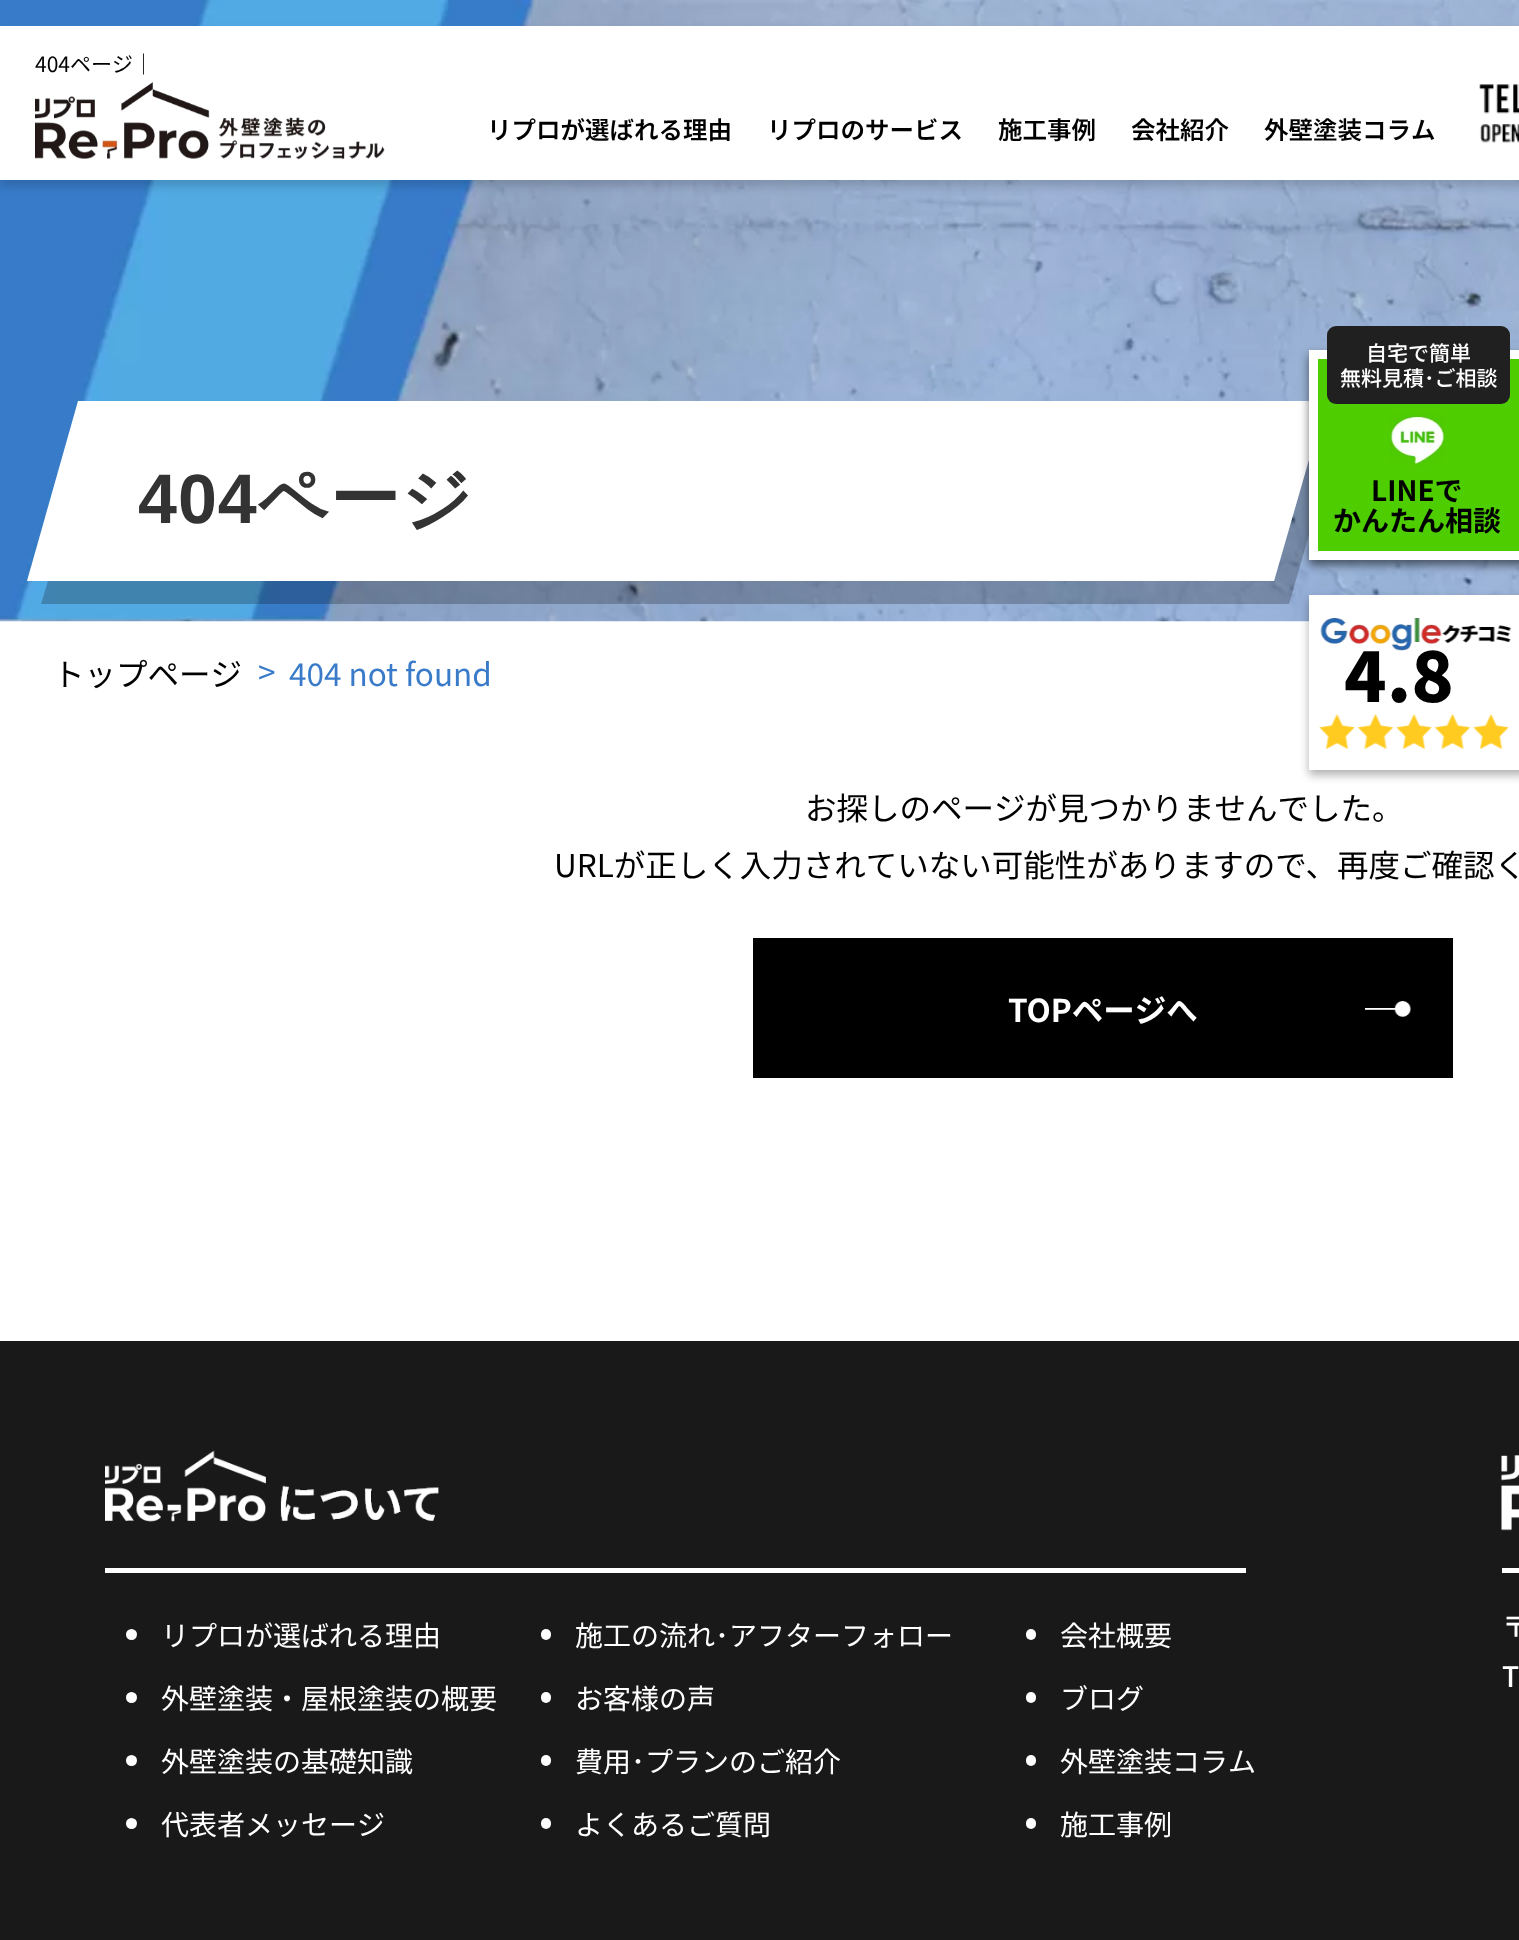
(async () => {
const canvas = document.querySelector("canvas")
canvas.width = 1519
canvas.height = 1940
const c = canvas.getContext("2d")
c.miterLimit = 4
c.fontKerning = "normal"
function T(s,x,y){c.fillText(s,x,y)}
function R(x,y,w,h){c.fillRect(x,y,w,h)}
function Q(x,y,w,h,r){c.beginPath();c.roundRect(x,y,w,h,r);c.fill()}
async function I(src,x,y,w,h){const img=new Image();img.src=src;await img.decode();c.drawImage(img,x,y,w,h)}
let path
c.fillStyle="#fff"
R(0,0,1519,1940)
await I("6.png",0,0,1519,622)
c.fillStyle="#00000029"
c.filter="blur(5px)"
c.beginPath()
c.rect(0,32,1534,154)
c.fill()
c.filter="none"
c.fillStyle="#fff"
R(0,26,1519,154)
c.font="21px Noto Sans JP"
c.fillStyle="#000"
T("404ページ｜",35,72)
await I("1.png",35,82,350,78)
c.font="600 24.5px Noto Sans JP"
T("リプロが選ばれる理由",487,139)
T("リプロのサービス",767,139)
T("施工事例",998,139)
T("会社紹介",1131,139)
T("外壁塗装コラム",1264,139)
await I("2.png",1479,84,40,59)
c.fillStyle="#0403033b"
path = new Path2D("M48 581l-7 23h1248l52-180h-22l-45 157z")
c.fill(path)
c.fillStyle="#fff"
path = new Path2D("M78 401h1248l-52 180h-1247z")
c.fill(path)
c.fillStyle="#0000008a"
c.filter="blur(5px)"
c.beginPath()
c.rect(1309,355,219,210)
c.fill()
c.filter="none"
c.fillStyle="#4ecd00"
c.beginPath()
c.rect(1313.5,354.5,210,201)
c.fill()
c.strokeStyle="#fff"
c.lineWidth=9
c.stroke()
c.fillStyle="#202020"
Q(1327,326,183,78,9)
c.font="500 21px Noto Sans JP"
c.fillStyle="#fff"
T("自宅で簡単",1366,361)
T("無料見積･ご相談",1340,386)
await I("3.png",1389,413,56,52)
c.font="bold 28px Noto Sans JP"
c.fillStyle="#000"
T("LINEで",1371,501)
T("かんたん相談",1333,531)
c.fillStyle="#0000004f"
c.filter="blur(5px)"
c.beginPath()
c.rect(1309,600,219,175)
c.fill()
c.filter="none"
c.fillStyle="#fff"
R(1309,595,210,175)
await I("4.png",1320,618,192,33)
c.font="900 70px Noto Sans JP"
c.fillStyle="#000"
T("4.8",1344,702)
await I("5.png",1319,714,190,35)
c.letterSpacing="1px"
c.font="bold 70px Liberation Sans"
c.fillStyle="#333"
T("404",138,523)
c.font="bold 70px WenQuanYi Zen Hei"
T("ページ",257,523)
c.letterSpacing="0px"
c.font="31.5px Noto Sans JP"
c.fillStyle="#000"
T("トップページ",53,686)
c.fillStyle="#397bc9"
T(">",258,684)
T("404 not found",289,686)
c.fillStyle="#000"
T("お探しのページが見つかりませんでした。",805,820)
T("URLが正しく入力されていない可能性がありますので、再度ご確認く",554,877)
R(753,938,700,140)
await I("7.png",1365,1001,46,16)
c.font="bold 31.5px Noto Sans JP"
c.fillStyle="#fff"
T("TOPページへ",1008,1022)
c.fillStyle="#191919"
R(0,1341,1519,599)
c.fillStyle="#fff"
R(105,1568,1141,5)
await I("8.png",105,1450,334,72)
c.beginPath()
c.arc(131.5,1634.5,5.5,0,7)
c.fill()
c.font="28px Noto Sans JP"
T("リプロが選ばれる理由",161,1646)
c.beginPath()
c.arc(131.5,1697.5,5.5,0,7)
c.fill()
T("外壁塗装・屋根塗装の概要",161,1709)
c.beginPath()
c.arc(131.5,1760.5,5.5,0,7)
c.fill()
T("外壁塗装の基礎知識",161,1772)
c.beginPath()
c.arc(131.5,1823.5,5.5,0,7)
c.fill()
T("代表者メッセージ",161,1835)
Q(541,1629,10,11,5)
T("施工の流れ･アフターフォロー",575,1646)
Q(541,1692,10,11,5)
T("お客様の声",575,1709)
Q(541,1755,10,11,5)
T("費用･プランのご紹介",575,1772)
Q(541,1818,10,11,5)
T("よくあるご質問",575,1835)
Q(1026,1629,10,11,5)
T("会社概要",1060,1646)
Q(1026,1692,10,11,5)
T("ブログ",1060,1709)
Q(1026,1755,10,11,5)
T("外壁塗装コラム",1060,1772)
Q(1026,1818,10,11,5)
T("施工事例",1060,1835)
R(1502,1568,17,5)
await I("9.png",1501,1455,18,76)
c.font="500 28px Noto Sans JP"
T("〒",1502,1637)
T("T",1502,1687)
})()
